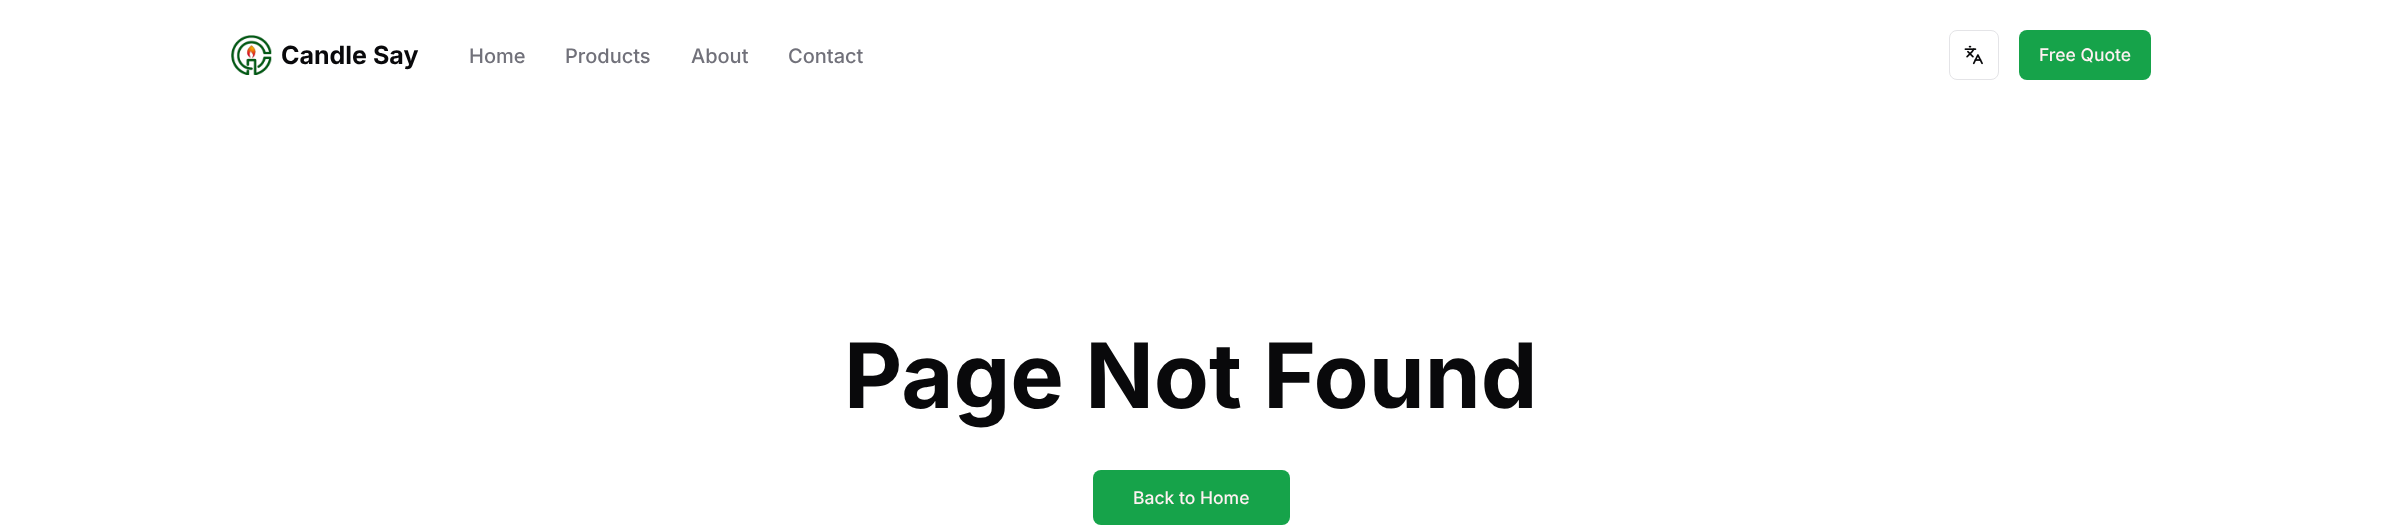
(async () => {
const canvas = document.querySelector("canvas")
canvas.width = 2382
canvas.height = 531
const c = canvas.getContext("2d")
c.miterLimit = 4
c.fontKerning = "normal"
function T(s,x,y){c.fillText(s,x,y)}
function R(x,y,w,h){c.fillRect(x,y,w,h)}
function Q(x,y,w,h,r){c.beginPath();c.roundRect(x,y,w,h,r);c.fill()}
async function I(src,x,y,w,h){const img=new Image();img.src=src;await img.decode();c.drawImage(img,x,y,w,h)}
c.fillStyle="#fff"
R(0,0,2382,531)
await I("1.png",231,35,41,40)
c.font="bold 25px Inter"
c.fillStyle="#09090b"
T("Candle Say",281,64)
c.font="500 20px Inter"
c.fillStyle="#71717a"
T("Home",469,63)
T("Products",565,63)
T("About",691,63)
T("Contact",788,63)
c.beginPath()
c.roundRect(1949.5,30.5,49,49,7.5)
c.strokeStyle="#e4e4e7"
c.stroke()
await I("2.png",1964,45,19,20)
c.fillStyle="#16a34a"
Q(2019,30,132,50,8)
c.font="500 17.5px Inter"
c.fillStyle="#fff1f2"
T("Free Quote",2039,61)
c.font="bold 90px Inter"
c.fillStyle="#09090b"
T("Page Not Found",844,408)
c.fillStyle="#16a34a"
Q(1093,470,197,55,8)
c.font="500 17.5px Inter"
c.fillStyle="#fff1f2"
T("Back to Home",1133,504)
})()
